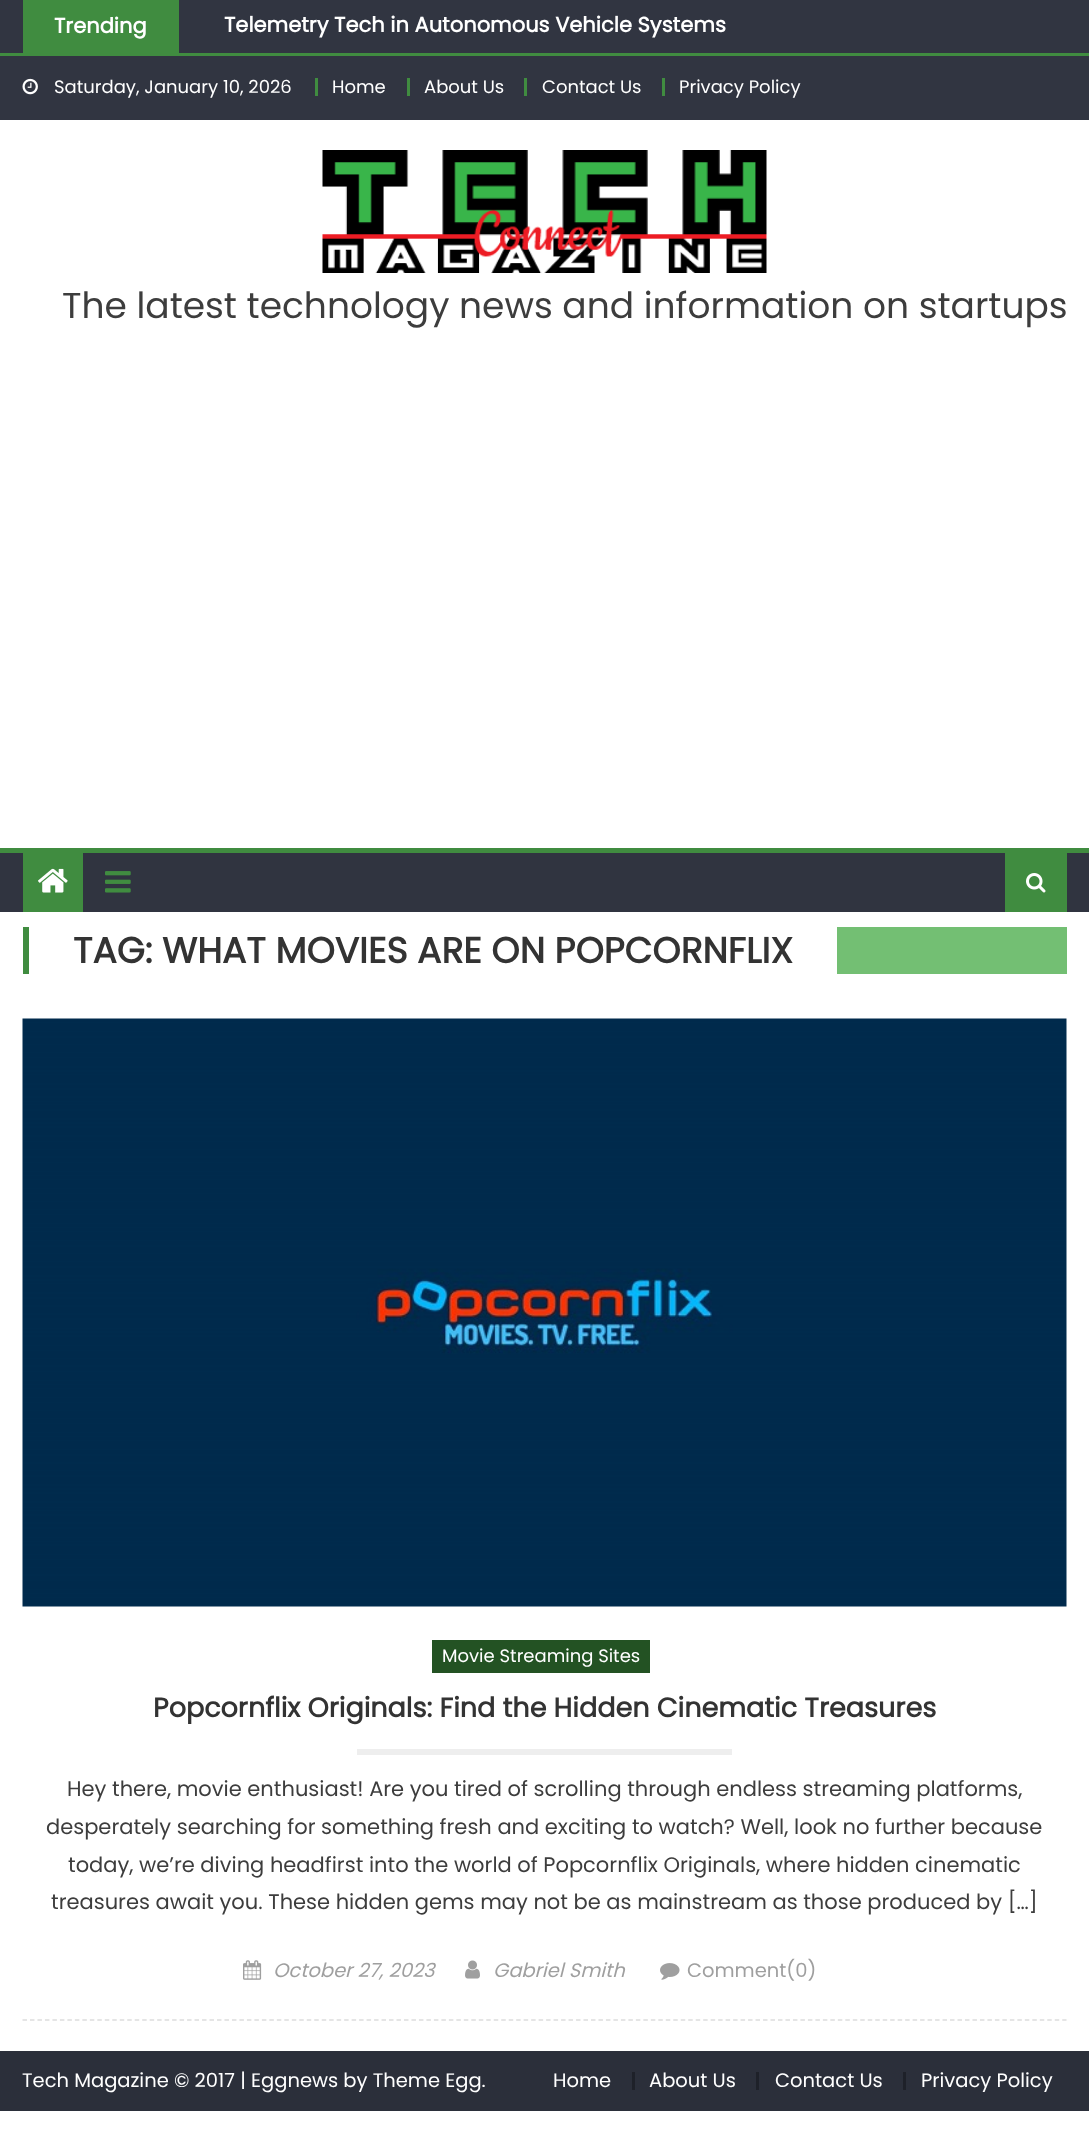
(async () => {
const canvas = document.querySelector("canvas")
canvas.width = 1089
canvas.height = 2148
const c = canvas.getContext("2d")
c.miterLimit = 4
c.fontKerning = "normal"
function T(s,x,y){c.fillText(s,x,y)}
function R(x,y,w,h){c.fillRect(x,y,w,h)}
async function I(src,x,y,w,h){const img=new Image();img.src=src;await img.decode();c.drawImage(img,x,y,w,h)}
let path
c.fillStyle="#fff"
R(0,0,1089,2148)
c.fillStyle="#313541"
R(0,0,1089,53)
c.fillStyle="#408c40"
R(23,0,156,53)
c.font="bold 21px Poppins"
c.fillStyle="#fff"
T("Trending",54,33)
T("Telemetry Tech in Autonomous Vehicle Systems",224,32)
c.fillStyle="#313541"
R(0,56,1089,64)
c.fillStyle="#408c40"
R(0,53,1089,3)
await I("1.png",22,78,16,17)
c.font="18px Poppins"
c.fillStyle="#fff"
T("Saturday, January 10, 2026",54,93)
c.fillStyle="#408c40"
R(315,78,3,18)
c.fillStyle="#fff"
T("Home",332,93)
c.fillStyle="#408c40"
R(407,78,3,18)
c.fillStyle="#fff"
T("About Us",424,93)
c.fillStyle="#408c40"
R(524,78,3,18)
c.fillStyle="#fff"
T("Contact Us",542,93)
c.fillStyle="#408c40"
R(662,78,3,18)
c.fillStyle="#fff"
T("Privacy Policy",679,93)
await I("2.png",322,150,445,123)
c.font="36px Poppins"
c.fillStyle="#3d3d3d"
T("The latest technology news and information on startups",62,318)
c.fillStyle="#303440"
R(0,853,1089,59)
c.fillStyle="#408c40"
R(0,848,1089,5)
R(23,853,60,59)
await I("3.png",38,868,30,25)
await I("4.png",105,871,26,22)
R(1005,853,62,59)
await I("5.png",1026,873,20,20)
c.fillStyle="#73bf73"
R(837,927,230,47)
c.fillStyle="#408c40"
R(23,927,6,47)
c.font="bold 36px Poppins"
c.fillStyle="#333"
T("TAG: WHAT MOVIES ARE ON POPCORNFLIX",73,963)
path = new Path2D("M22.5 2020h1044")
c.strokeStyle="#ddd"
c.lineWidth=1.5
c.setLineDash([4.5,2.98])
c.stroke(path)
await I("6.png",22,1018,1045,589)
c.fillStyle="#235223"
R(432,1640,218,33)
c.font="18px Poppins"
c.fillStyle="#fff"
T("Movie Streaming Sites",442,1662)
c.font="bold 27px Poppins"
c.fillStyle="#333"
T("Popcornflix Originals: Find the Hidden Cinematic Treasures",153,1717)
c.fillStyle="#eee"
R(357,1749,375,6)
c.font="21px Poppins"
c.fillStyle="#3d3d3d"
T("Hey there, movie enthusiast! Are you tired of scrolling through endless streaming platforms,",67,1796)
T("desperately searching for something fresh and exciting to watch? Well, look no further because",46,1834)
T("today, we’re diving headfirst into the world of Popcornflix Originals, where hidden cinematic",68,1872)
T("treasures await you. These hidden gems may not be as mainstream as those produced by […]",51,1909)
await I("7.png",243,1960,19,20)
c.font="italic 19.5px Poppins"
c.fillStyle="#9f9f9f"
T("October 27, 2023",273,1977)
await I("8.png",465,1960,15,19)
T("Gabriel Smith",493,1977)
await I("9.png",660,1963,20,17)
c.font="19.5px Poppins"
T("Comment(0)",687,1977)
c.fillStyle="#2b2f3a"
R(0,2051,1089,60)
c.fillStyle="#fff"
T("Tech Magazine © 2017 | Eggnews by Theme Egg.",22,2087)
T("Home",553,2087)
c.fillStyle="#1e2129"
R(632,2072,3,18)
c.fillStyle="#fff"
T("About Us",649,2087)
c.fillStyle="#1e2129"
R(756,2072,3,18)
c.fillStyle="#fff"
T("Contact Us",775,2087)
c.fillStyle="#1e2129"
R(903,2072,3,18)
c.fillStyle="#fff"
T("Privacy Policy",921,2087)
})()
